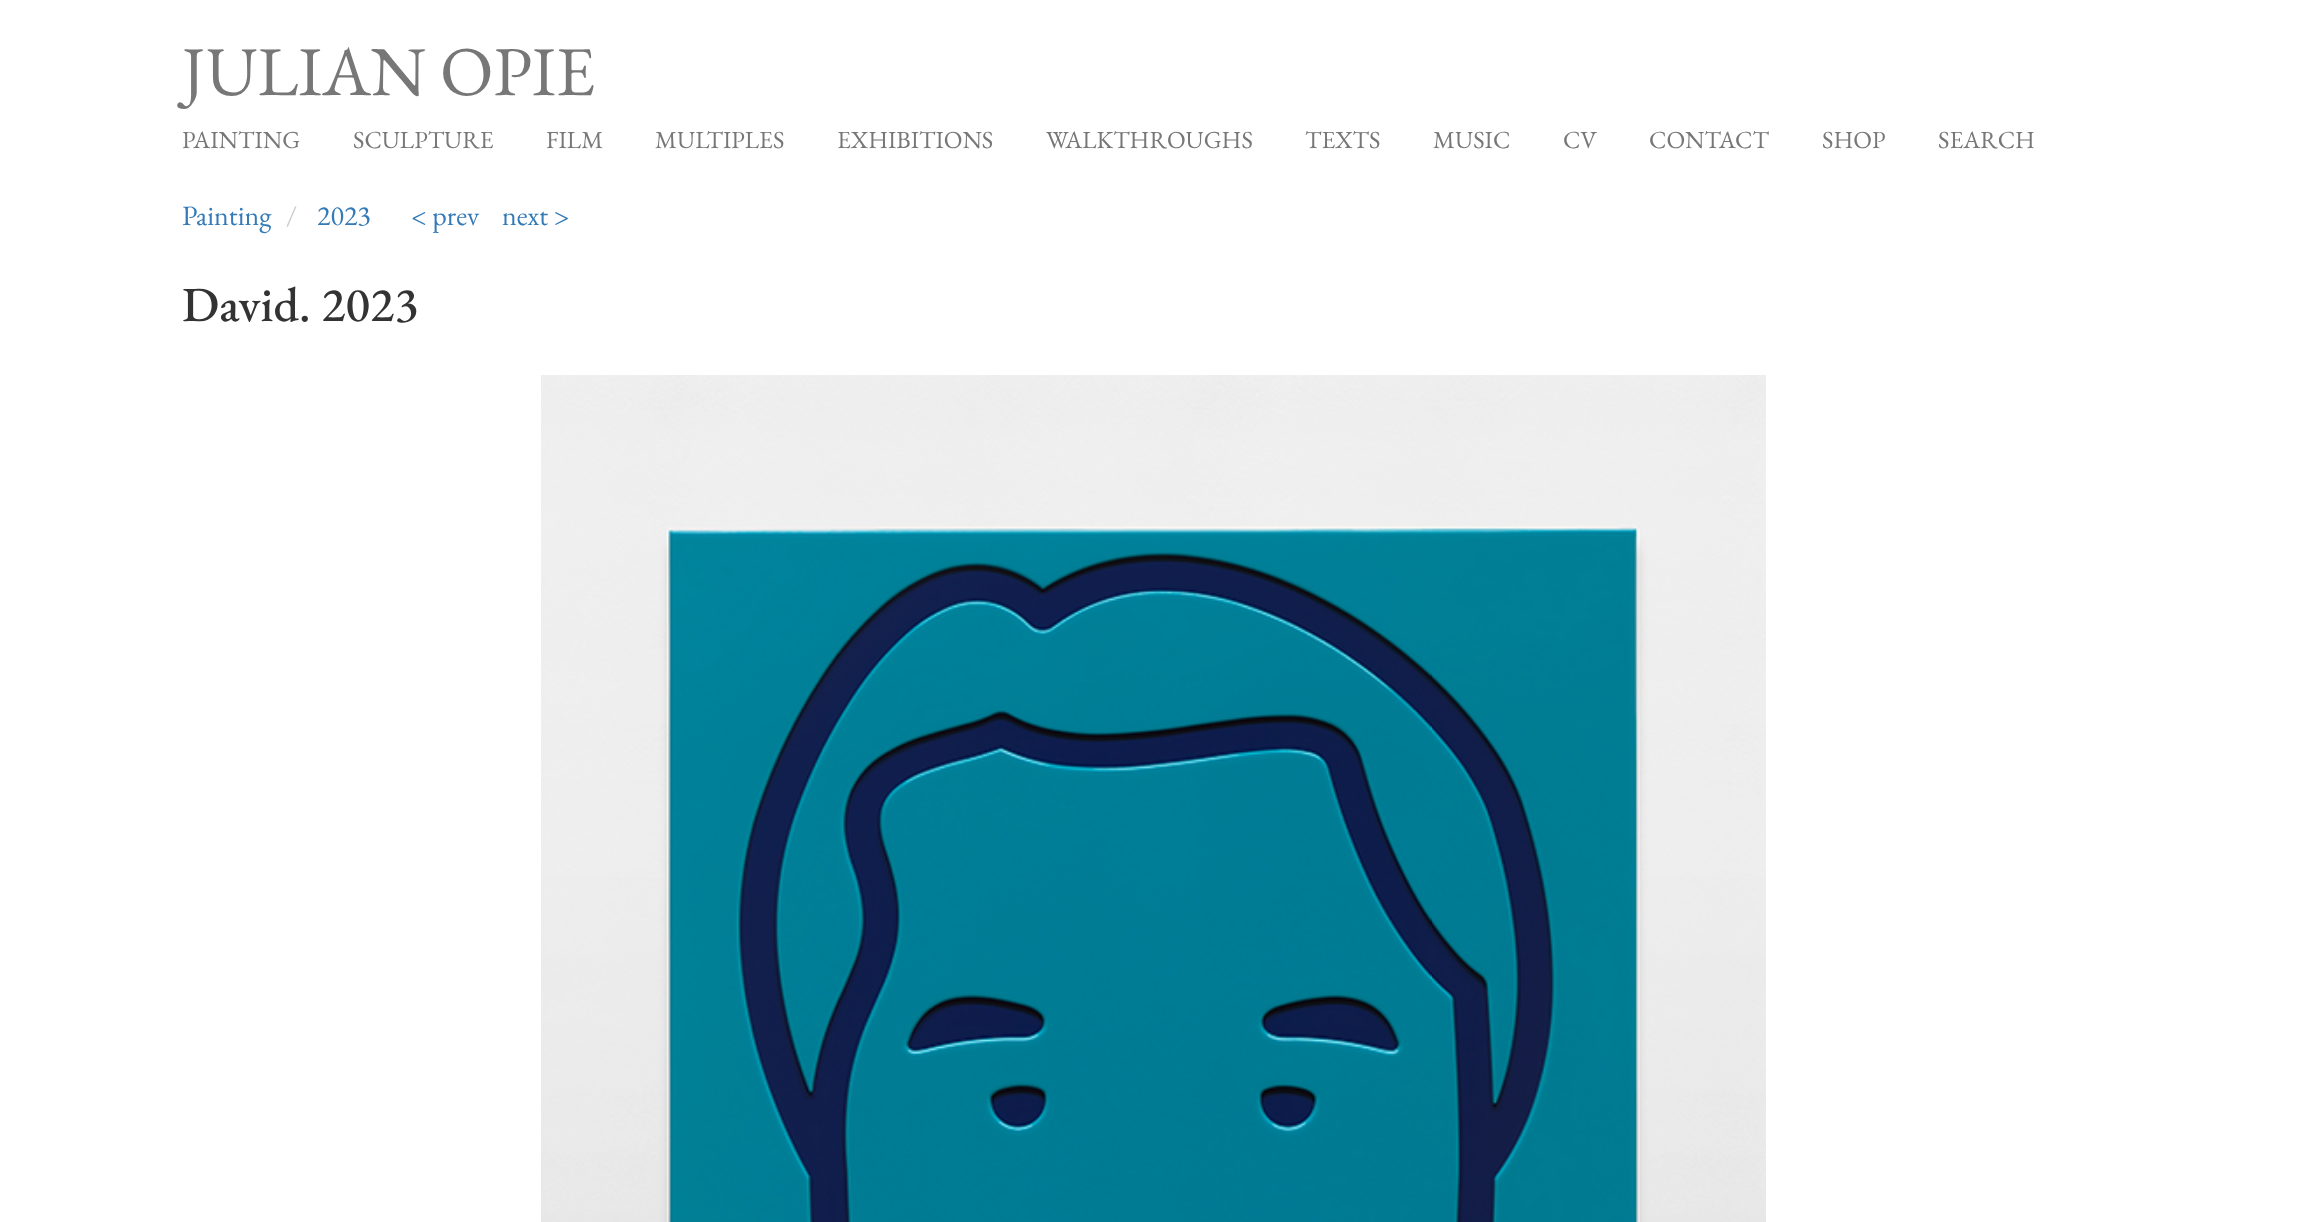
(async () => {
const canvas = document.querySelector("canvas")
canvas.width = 2306
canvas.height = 1222
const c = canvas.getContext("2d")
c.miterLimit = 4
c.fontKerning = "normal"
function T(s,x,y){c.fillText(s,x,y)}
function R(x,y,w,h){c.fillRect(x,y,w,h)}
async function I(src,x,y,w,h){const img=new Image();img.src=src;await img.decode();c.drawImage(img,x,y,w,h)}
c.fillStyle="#fff"
R(0,0,2306,1222)
c.font="70px EB Garamond"
c.fillStyle="#777"
T("JULIAN OPIE",182,95)
c.font="24.5px EB Garamond"
T("PAINTING",182,148)
T("SCULPTURE",353,148)
T("FILM",546,148)
T("MULTIPLES",655,148)
T("EXHIBITIONS",837,148)
T("WALKTHROUGHS",1046,148)
T("TEXTS",1305,148)
T("MUSIC",1433,148)
T("CV",1563,148)
T("CONTACT",1649,148)
T("SHOP",1822,148)
T("SEARCH",1938,148)
c.font="28px EB Garamond"
c.fillStyle="#337ab7"
T("Painting",182,225)
c.fillStyle="#ccc"
T("/",286,225)
c.fillStyle="#337ab7"
T("2023",317,225)
T("< prev",411,225)
T("next >",502,225)
c.font="500 49px EB Garamond"
c.fillStyle="#333"
T("David. 2023",182,321)
await I("1.png",541,375,1225,847)
})()
